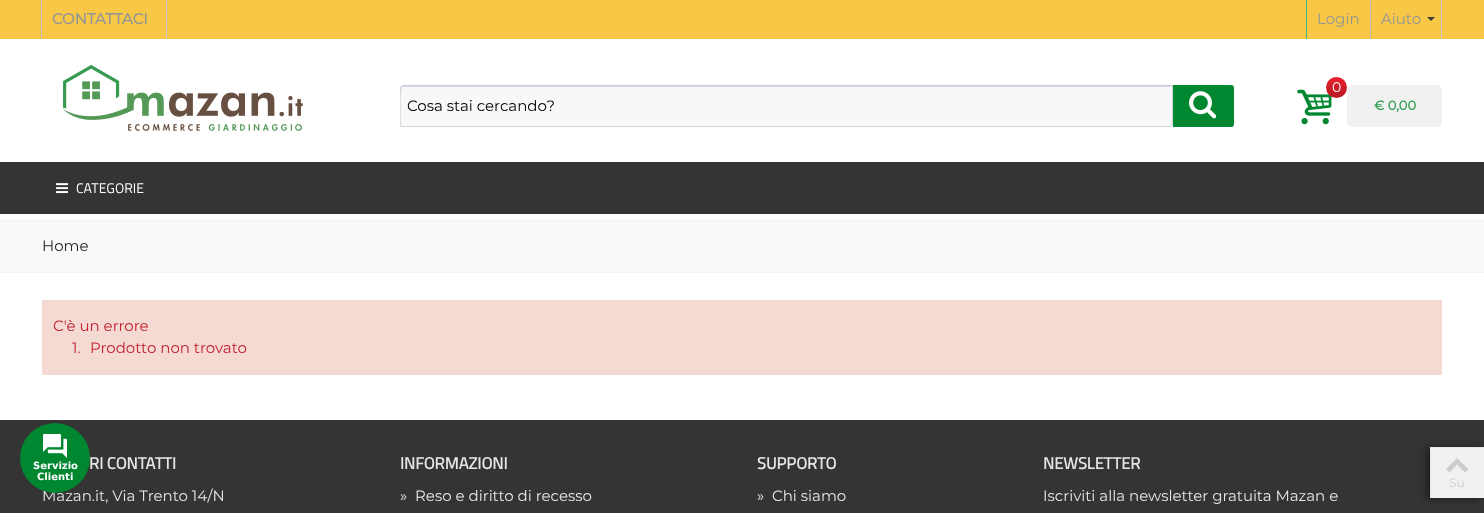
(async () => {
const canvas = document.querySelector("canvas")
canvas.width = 1484
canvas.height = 513
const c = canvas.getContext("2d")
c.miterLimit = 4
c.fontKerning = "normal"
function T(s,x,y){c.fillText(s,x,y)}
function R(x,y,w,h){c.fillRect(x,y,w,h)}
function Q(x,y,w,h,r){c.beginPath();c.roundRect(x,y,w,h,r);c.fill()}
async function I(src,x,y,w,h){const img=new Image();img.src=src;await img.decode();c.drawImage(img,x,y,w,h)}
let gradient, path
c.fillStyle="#fff"
R(0,0,1484,513)
c.fillStyle="#f7c745"
R(0,0,1484,39)
c.fillStyle="#c7c7c7"
R(166,0,1,39)
c.fillStyle="#bbb"
R(41,0,1,39)
c.font="bold 15px Montserrat"
c.fillStyle="#949597"
T("CONTATTACI",52,24)
c.fillStyle="#3ab47b"
R(1306,0,1,39)
c.font="100 15px Montserrat"
c.fillStyle="#949597"
T("Login",1317,24)
c.fillStyle="#c7c7c7"
R(1441,0,1,39)
c.fillStyle="#bbb"
R(1370,0,1,39)
c.fillStyle="#949597"
T("Aiuto",1381,24)
c.fillStyle="#3b3b3b"
path = new Path2D("M1427 17h8l-4 4z")
c.fill(path)
await I("1.png",63,65,240,66)
c.fillStyle="#f8f8fa"
c.beginPath()
c.roundRect(400,85,773,42,[3,0,3,0])
c.fill()
c.fillStyle="#dadae5"
path = new Path2D("M403 87h769v-1h-769c-2 0-2 2-2 3c0-1 1-2 2-2z")
c.fill(path)
c.fillStyle="#cbcbdb"
path = new Path2D("M403 85l-2 1l1 1l1-1h769l1-1z")
c.fill(path)
c.fillStyle="#d6d6d6"
path = new Path2D("M1173 85l-1 1c0 5 1 38-1 39l1 1l1-2z")
c.fill(path)
path = new Path2D("M1170 127l2-1l-1-1l-1 1h-769l-1 1z")
c.fill(path)
path = new Path2D("M400 127l1-1c0-5-1-38 1-39l-1-1l-1 2z")
c.fill(path)
c.fillStyle="#000"
T("Cosa stai cercando?",407,111)
c.fillStyle="#008730"
c.beginPath()
c.roundRect(1173,85,61,42,[0,3,3,0])
c.fill()
await I("2.png",1189,91,28,28)
await I("3.png",1297,89,35,36)
gradient = c.createLinearGradient(1337,77,1337,98)
gradient.addColorStop(0,"#e9222e")
gradient.addColorStop(1,"#b61821")
c.fillStyle = gradient
c.beginPath()
c.arc(1336.5,87.5,10.5,0,7)
c.fill()
c.font="100 14px Montserrat"
c.fillStyle="#fff"
T("0",1332,92)
c.fillStyle="#f1f1f1"
Q(1347,85,95,42,5)
c.font="bold 13px Montserrat"
c.fillStyle="#309c4f"
T("€ 0,00",1374,110)
c.fillStyle="#343434"
R(0,162,1484,52)
await I("4.png",56,183,12,11)
c.font="14px Titillium Web"
c.fillStyle="#fff"
T("CATEGORIE",76,193)
gradient = c.createLinearGradient(742,220,742,273)
gradient.addColorStop(0,"#f2f2f2")
gradient.addColorStop(.05,"#f9f9f9")
gradient.addColorStop(.95,"#f9f9f9")
gradient.addColorStop(1,"#f2f2f2")
c.fillStyle = gradient
R(0,220,1484,53)
c.font="100 15px Montserrat"
c.fillStyle="#272727"
T("Home",42,251)
c.fillStyle="#f5dad3"
R(42,300,1400,75)
c.fillStyle="#c02230"
T("C'è un errore",53,331)
T("1.",72,353)
T("Prodotto non trovato",90,353)
c.fillStyle="#343434"
R(0,420,1484,93)
c.font="bold 16.5px Titillium Web"
c.fillStyle="#e6e6e6"
T("RI CONTATTI",89,469)
c.font="100 15px Montserrat"
T("Mazan.it, Via Trento 14/N",42,501)
c.font="bold 16.5px Titillium Web"
T("INFORMAZIONI",400,469)
c.font="100 15px Montserrat"
T("»",400,501)
T("Reso e diritto di recesso",415,501)
c.font="bold 16.5px Titillium Web"
T("SUPPORTO",757,469)
c.font="100 15px Montserrat"
T("»",757,501)
T("Chi siamo",772,501)
c.font="bold 16.5px Titillium Web"
T("NEWSLETTER",1043,469)
c.font="100 15px Montserrat"
T("Iscriviti alla newsletter gratuita Mazan e",1043,501)
c.fillStyle="#008730"
c.beginPath()
c.arc(55,458,35,0,7)
c.fill()
await I("5.png",43,434,24,24)
c.font="bold 10px DejaVu Sans"
c.fillStyle="#fff"
T("Servizio",33,469)
T("Clienti",37,480)
c.fillStyle="#0000006e"
c.filter="blur(3.5px)"
c.beginPath()
c.rect(1426,448,54,51)
c.fill()
c.filter="none"
c.fillStyle="#f1f1f1"
R(1431,448,53,50)
c.fillStyle="#e5e5e5"
R(1430,447,54,1)
R(1430,448,1,50)
c.fillStyle="#ccc"
path = new Path2D("M1446 469l11-11l11.5 11l-3.5 3.5l-8-8l-7.5 8z")
c.fill(path)
c.font="100 12px Montserrat"
T("Su",1449,487)
})()
